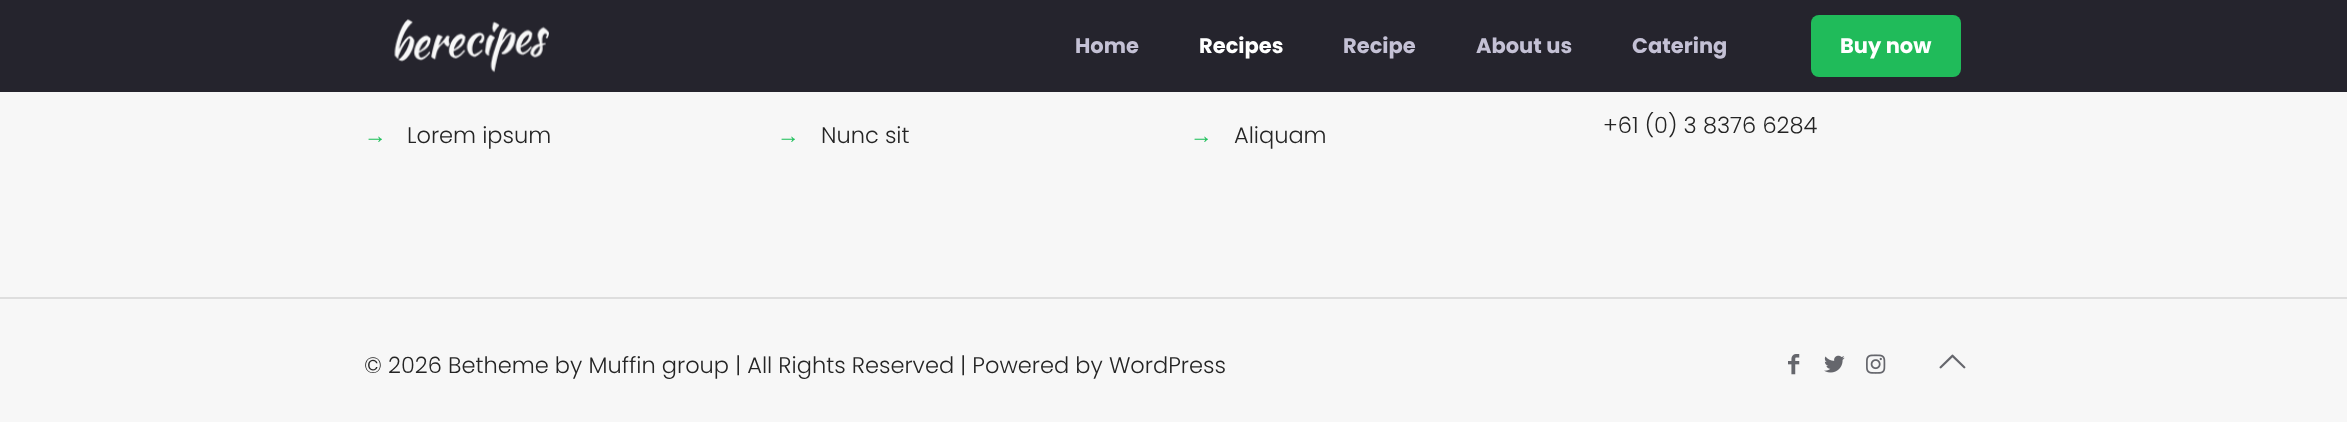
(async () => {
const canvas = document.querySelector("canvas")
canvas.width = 2347
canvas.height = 422
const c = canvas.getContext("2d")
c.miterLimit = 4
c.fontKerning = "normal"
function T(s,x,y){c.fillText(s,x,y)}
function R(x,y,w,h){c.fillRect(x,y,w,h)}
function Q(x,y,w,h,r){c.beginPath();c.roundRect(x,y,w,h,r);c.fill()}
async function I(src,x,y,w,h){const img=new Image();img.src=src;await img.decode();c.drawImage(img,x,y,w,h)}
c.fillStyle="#f7f7f7"
R(0,0,2347,422)
c.fillStyle="#1e1d26f7"
R(0,0,2347,92)
await I("1.png",394,19,155,54)
c.font="bold 21px Poppins"
c.fillStyle="#c4c1d5"
T("Home",1075,53)
c.fillStyle="#fff"
T("Recipes",1199,53)
c.fillStyle="#c4c1d5"
T("Recipe",1343,53)
T("About us",1476,53)
T("Catering",1632,53)
c.fillStyle="#20c05cf7"
Q(1811,15,150,62,8)
c.fillStyle="#fff"
T("Buy now",1840,53)
c.font="22.5px Liberation Sans"
c.fillStyle="#20c05c"
T("→",364,143)
c.font="300 22.5px Poppins"
c.fillStyle="#242424"
T("Lorem ipsum",407,143)
c.font="22.5px Liberation Sans"
c.fillStyle="#20c05c"
T("→",777,143)
c.font="300 22.5px Poppins"
c.fillStyle="#242424"
T("Nunc sit",821,143)
c.font="22.5px Liberation Sans"
c.fillStyle="#20c05c"
T("→",1190,143)
c.font="300 22.5px Poppins"
c.fillStyle="#242424"
T("Aliquam",1234,143)
T("+61 (0) 3 8376 6284",1603,133)
c.fillStyle="#dedede"
R(0,297,2347,2)
c.fillStyle="#242424"
T("© 2026 Betheme by Muffin group | All Rights Reserved | Powered by WordPress",364,373)
await I("2.png",1788,354,12,21)
await I("3.png",1824,355,21,18)
await I("4.png",1866,354,20,20)
await I("5.png",1939,354,27,15)
})()
